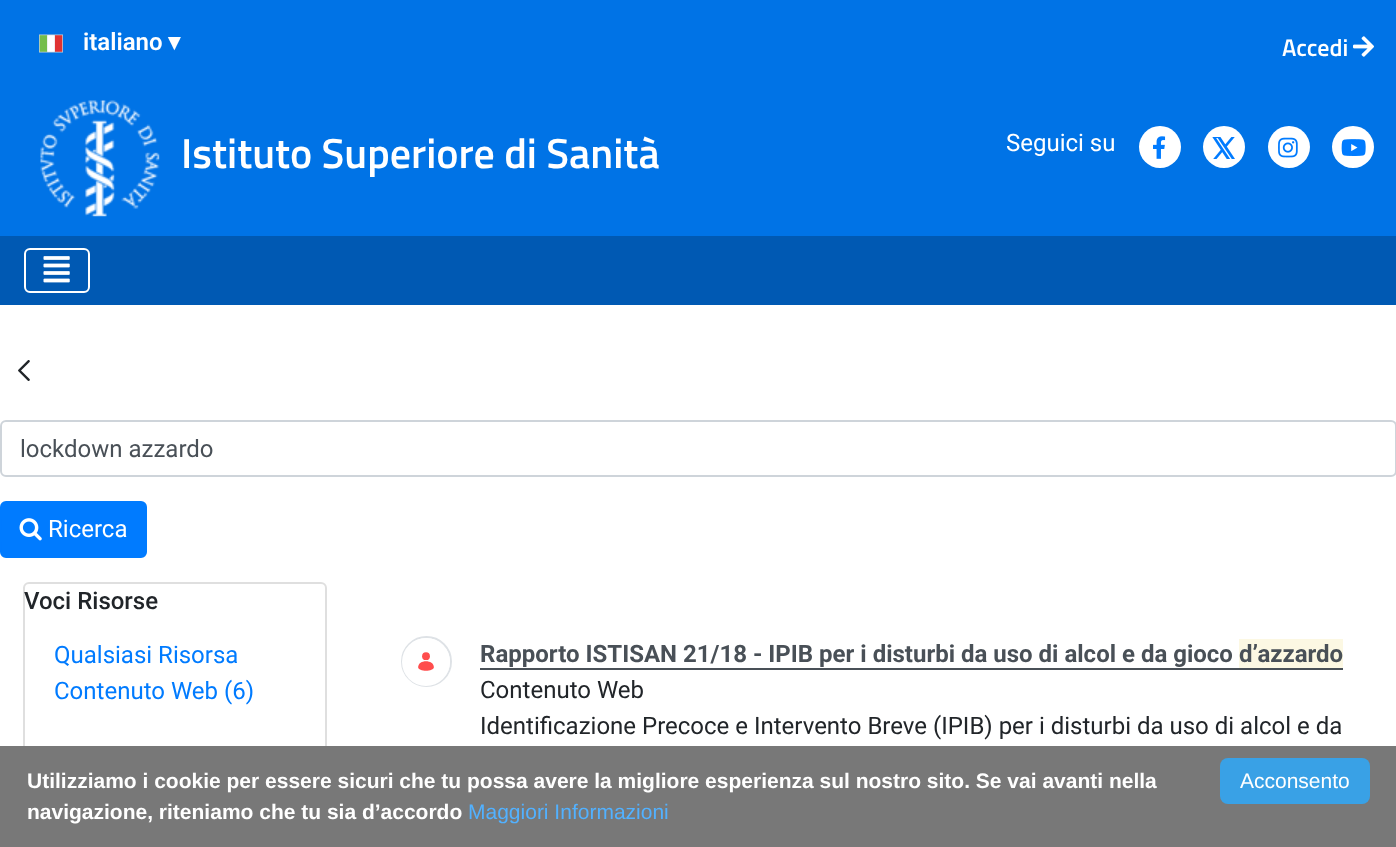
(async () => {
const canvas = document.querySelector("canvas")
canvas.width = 1396
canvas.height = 847
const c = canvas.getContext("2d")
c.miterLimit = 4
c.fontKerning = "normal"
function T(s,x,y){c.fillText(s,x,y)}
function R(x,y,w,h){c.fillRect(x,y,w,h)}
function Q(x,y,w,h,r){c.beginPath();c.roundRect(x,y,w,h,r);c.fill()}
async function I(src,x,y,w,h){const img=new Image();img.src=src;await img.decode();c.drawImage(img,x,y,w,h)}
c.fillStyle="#fff"
R(0,0,1396,847)
c.fillStyle="#0073e6"
R(0,0,1396,236)
await I("1.png",39,34,24,19)
c.font="600 24px Roboto"
c.fillStyle="#fff"
T("italiano",83,50)
c.font="bold 24px DejaVu Sans"
T("▾",168,50)
c.font="600 24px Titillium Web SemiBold"
T("Accedi",1282,56)
await I("2.png",1353,36,21,21)
await I("3.png",40,100,120,117)
c.font="600 42px Titillium Web SemiBold"
T("Istituto Superiore di Sanità",181,168)
c.font="24px Roboto"
T("Seguici su",1006,151)
c.beginPath()
c.arc(1160,147,21,0,7)
c.fill()
await I("4.png",1153,136,13,23)
c.beginPath()
c.arc(1224,147,21,0,7)
c.fill()
await I("5.png",1212,137,23,22)
c.beginPath()
c.arc(1289,147,21,0,7)
c.fill()
await I("6.png",1278,137,20,21)
c.beginPath()
c.arc(1353,147,21,0,7)
c.fill()
await I("7.png",1341,139,25,17)
c.fillStyle="#0059b3"
R(0,236,1396,69)
c.beginPath()
c.roundRect(25,249,64,43,5)
c.strokeStyle="#fff"
c.lineWidth=2
c.stroke()
await I("8.png",43,256,27,27)
await I("9.png",18,360,12,21)
c.beginPath()
c.roundRect(1,421,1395,55,5)
c.strokeStyle="#ced4da"
c.stroke()
c.fillStyle="#495057"
T("lockdown azzardo",20,457)
c.fillStyle="#007bff"
c.beginPath()
c.roundRect(1,502,145,55,5)
c.fill()
c.strokeStyle="#007bff"
c.stroke()
await I("10.png",19,518,23,23)
c.fillStyle="#fff"
T("Ricerca",48,537)
c.beginPath()
c.roundRect(24,583,302,169,5)
c.strokeStyle="#dfdfdf"
c.stroke()
c.font="500 24px Roboto"
c.fillStyle="#212529"
T("Voci Risorse",24,609)
c.font="24px Roboto"
c.fillStyle="#007bff"
T("Qualsiasi Risorsa",54,663)
T("Contenuto Web (6)",54,699)
c.beginPath()
c.arc(426.5,661.5,24.5,0,7)
c.strokeStyle="#dee2e6"
c.stroke()
c.fillStyle="#fff"
c.beginPath()
c.arc(426,662,24,0,7)
c.fill()
await I("11.png",418,652,16,19)
c.font="bold 24px Roboto"
c.fillStyle="#495057"
T("Rapporto ISTISAN 21/18 - IPIB per i disturbi da uso di alcol e da gioco",480,662)
R(480,668,863,2)
c.fillStyle="#fcf8e3"
R(1239,639,104,29)
c.fillStyle="#495057"
T("d’azzardo",1239,662)
c.font="24px Roboto"
c.fillStyle="#212529"
T("Contenuto Web",480,698)
T("Identificazione Precoce e Intervento Breve (IPIB) per i disturbi da uso di alcol e da",480,734)
c.fillStyle="#787878"
R(0,746,1396,101)
c.font="bold 21px Liberation Sans"
c.fillStyle="#fff"
T("Utilizziamo i cookie per essere sicuri che tu possa avere la migliore esperienza sul nostro sito. Se vai avanti nella",27,788)
T("navigazione, riteniamo che tu sia d’accordo",27,819)
c.font="21px Liberation Sans"
c.fillStyle="#52b1ff"
T("Maggiori Informazioni",468,819)
c.fillStyle="#39a1e6"
Q(1220,758,150,46,8)
c.fillStyle="#fff"
T("Acconsento",1240,788)
})()
